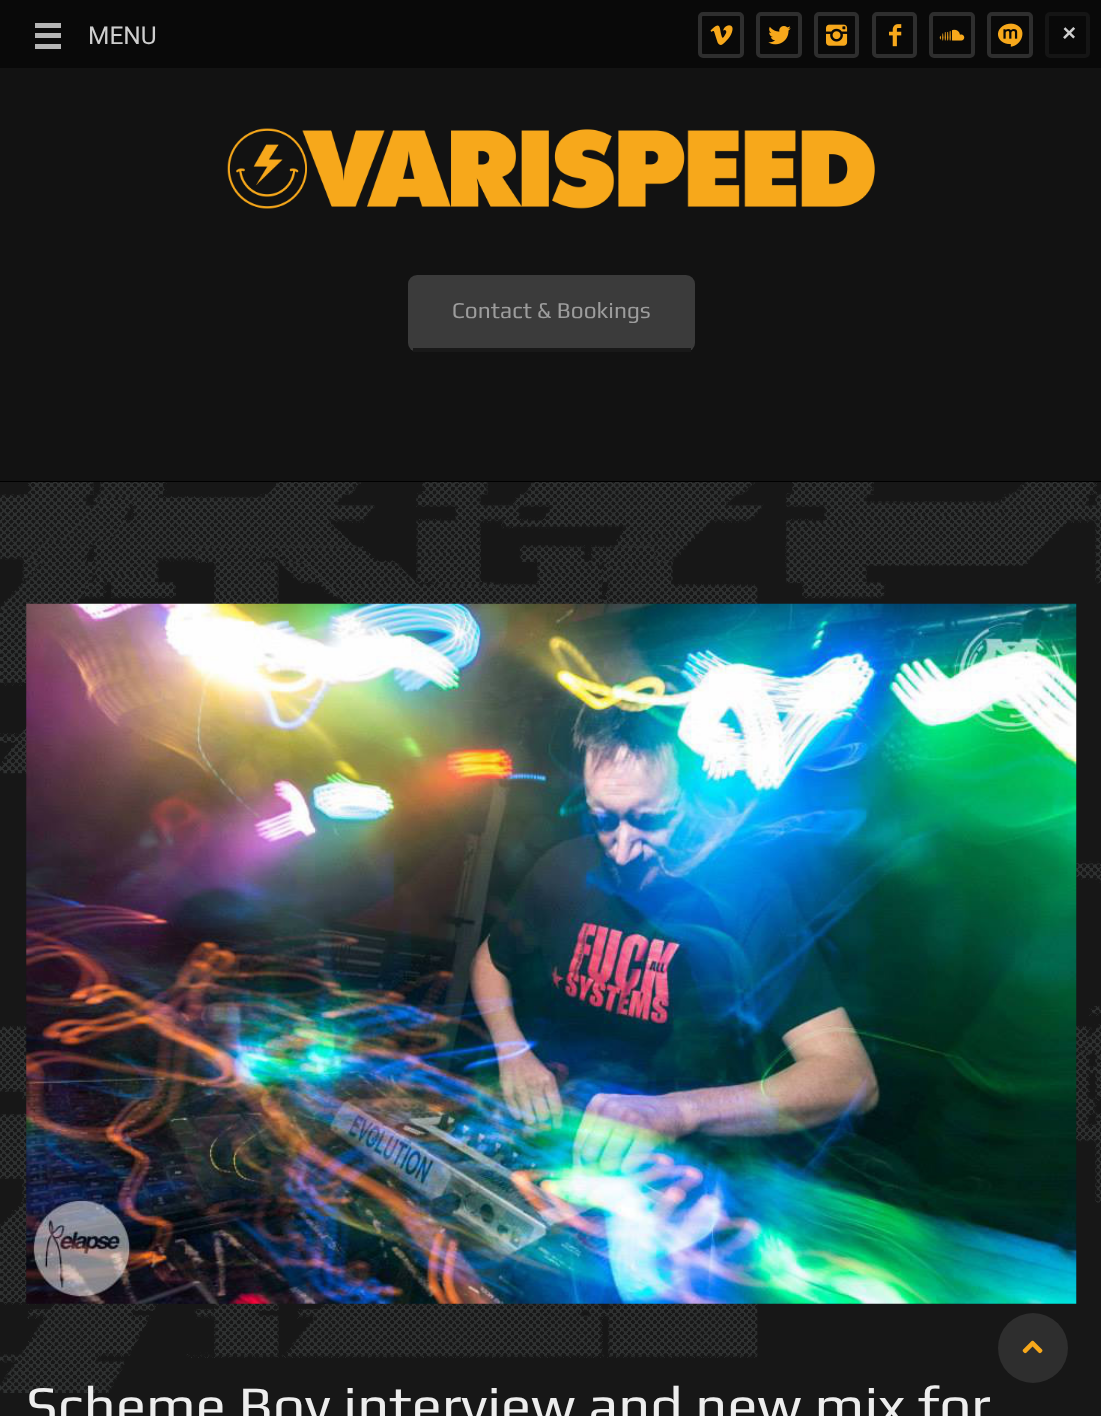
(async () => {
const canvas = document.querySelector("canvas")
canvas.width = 1101
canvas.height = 1416
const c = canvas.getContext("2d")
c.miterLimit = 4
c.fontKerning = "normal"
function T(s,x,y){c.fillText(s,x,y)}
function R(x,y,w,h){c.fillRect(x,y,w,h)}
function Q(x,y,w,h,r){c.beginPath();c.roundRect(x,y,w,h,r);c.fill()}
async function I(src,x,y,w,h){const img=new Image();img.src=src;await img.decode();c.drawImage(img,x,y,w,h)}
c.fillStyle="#fff"
R(0,0,1101,1416)
await I("1.png",0,482,1101,934)
c.fillStyle="#090909"
R(0,0,1101,68)
c.fillStyle="#131313"
R(0,68,1101,2)
c.fillStyle="#b5b5b5"
R(35,23,26,5)
R(35,33,26,5)
R(35,44,26,5)
c.font="24.5px Roboto"
c.fillStyle="#cecece"
T("MENU",88,44)
c.beginPath()
c.roundRect(700,14,42,42,3)
c.strokeStyle="#2e2e2e"
c.lineWidth=4
c.stroke()
await I("2.png",710,25,23,20)
c.beginPath()
c.roundRect(758,14,42,42,3)
c.stroke()
await I("3.png",768,26,23,19)
c.beginPath()
c.roundRect(816,14,41,42,3)
c.stroke()
await I("4.png",826,24,22,22)
c.beginPath()
c.roundRect(874,14,41,42,3)
c.stroke()
await I("5.png",889,24,13,23)
c.beginPath()
c.roundRect(931,14,42,42,3)
c.stroke()
await I("6.png",939,29,26,12)
c.beginPath()
c.roundRect(989,14,42,42,3)
c.stroke()
await I("7.png",998,23,25,24)
c.beginPath()
c.roundRect(1047,14,41,42,3)
c.strokeStyle="#151515"
c.stroke()
c.font="28px Roboto"
c.save()
c.translate(1057,34)
c.rotate(45 * Math.PI / 180)
c.fillText("+",0,0)
c.restore()
c.fillStyle="#000"
R(0,481,1101,1)
c.fillStyle="#121212"
R(0,70,1101,411)
await I("8.png",227,128,648,81)
c.fillStyle="#3b3b3b"
Q(408,275,287,77,9)
c.fillStyle="#191919"
R(413,348,278,4)
c.font="22.75px Play"
c.fillStyle="#9d9d9d"
T("Contact & Bookings",452,318)
await I("9.png",26,603,1051,701)
c.font="56px Play"
c.fillStyle="#ededed"
T("Scheme Boy interview and new mix for",26,1425)
c.fillStyle="#2e2e2e"
c.beginPath()
c.arc(1033,1348,35,0,7)
c.fill()
await I("10.png",1022,1340,21,14)
})()
